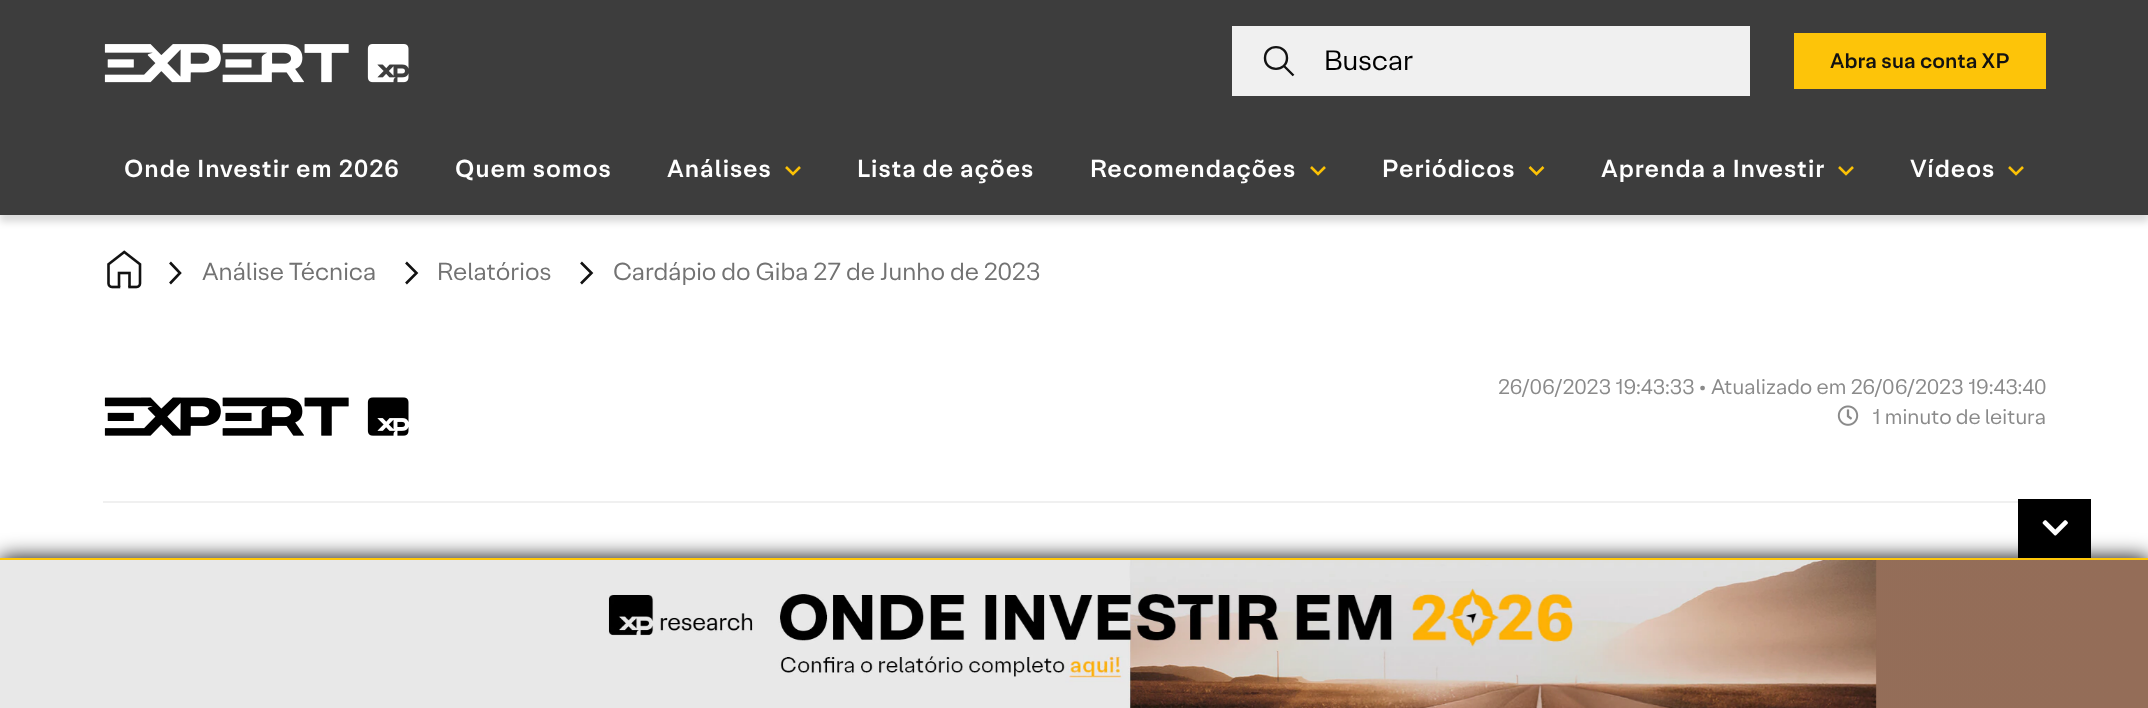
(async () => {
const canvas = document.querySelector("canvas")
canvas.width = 2148
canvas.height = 708
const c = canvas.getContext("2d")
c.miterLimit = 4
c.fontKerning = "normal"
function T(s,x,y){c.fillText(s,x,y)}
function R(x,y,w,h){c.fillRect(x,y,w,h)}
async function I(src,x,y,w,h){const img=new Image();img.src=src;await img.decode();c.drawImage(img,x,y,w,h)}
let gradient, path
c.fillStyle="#fff"
R(0,0,2148,708)
c.fillStyle="#00000024"
c.filter="blur(3.5px)"
c.beginPath()
c.rect(0,7,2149,215)
c.fill()
c.filter="none"
c.fillStyle="#3d3d3d"
R(0,0,2148,215)
await I("1.png",104,44,305,39)
c.fillStyle="#f0f0f0"
R(1232,26,518,70)
path = new Path2D("M1293.5 75.5l-9.5-9.5m3-8c0 14.5-22 14.5-22 0c0-14.5 22-14.5 22 0z")
c.strokeStyle="#121212"
c.lineWidth=2.4
c.stroke(path)
c.font="300 28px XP"
c.fillStyle="#000"
T("Buscar",1324,70)
c.fillStyle="#fdc409"
R(1794,33,252,56)
c.font="300 21px 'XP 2'"
c.fillStyle="#121212"
T("Abra sua conta XP",1830,68)
c.letterSpacing="0.9px"
c.font="300 24.5px 'XP 2'"
c.fillStyle="#fff"
T("Onde Investir em 2026",124,177)
T("Quem somos",455,177)
T("Análises",667,177)
path = new Path2D("M786 167l7 7l7-7")
c.strokeStyle="#fbc105"
c.lineWidth=2.6
c.stroke(path)
T("Lista de ações",857,177)
T("Recomendações",1090,177)
path = new Path2D("M1311 167l7 7l7-7")
c.stroke(path)
T("Periódicos",1382,177)
path = new Path2D("M1529.5 167l7 7l7-7")
c.stroke(path)
T("Aprenda a Investir",1601,177)
path = new Path2D("M1839 167l7 7l7-7")
c.stroke(path)
T("Vídeos",1910,177)
path = new Path2D("M2009 167l7 7l7-7")
c.stroke(path)
await I("2.png",107,250,35,39)
path = new Path2D("M170 283.5l10-10.5l-10-10.5")
c.strokeStyle="#121212"
c.stroke(path)
c.letterSpacing="0px"
c.font="300 24.5px XP"
c.fillStyle="#727272"
T("Análise Técnica",202,280)
path = new Path2D("M406 283.5l10.5-10.5l-10.5-10.5")
c.stroke(path)
T("Relatórios",437,280)
path = new Path2D("M581 283.5l10.5-10.5l-10.5-10.5")
c.stroke(path)
T("Cardápio do Giba 27 de Junho de 2023",613,280)
await I("3.png",104,397,305,39)
c.font="300 21px XP"
c.fillStyle="#8a8a8a"
T("26/06/2023 19:43:33 • Atualizado em 26/06/2023 19:43:40",1498,394)
await I("4.png",1837,405,22,21)
T("1 minuto de leitura",1872,424)
c.fillStyle="#f0f0f0"
R(103,501,1915,2)
c.fillStyle="#000"
c.filter="blur(10.5px)"
c.beginPath()
c.rect(0,558,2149,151)
c.fill()
c.filter="none"
gradient = c.createLinearGradient(0,634,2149,634)
gradient.addColorStop(0,"#e8e8e8")
gradient.addColorStop(.5,"#e8e8e8")
gradient.addColorStop(.5,"#936e59")
gradient.addColorStop(1,"#946d58")
c.fillStyle = gradient
R(0,560,2148,148)
c.fillStyle="#ffc709"
R(0,558,2148,2)
c.fillStyle="#000"
R(2018,499,73,59)
await I("5.png",2042,520,26,16)
await I("6.png",608,560,1269,148)
})()
